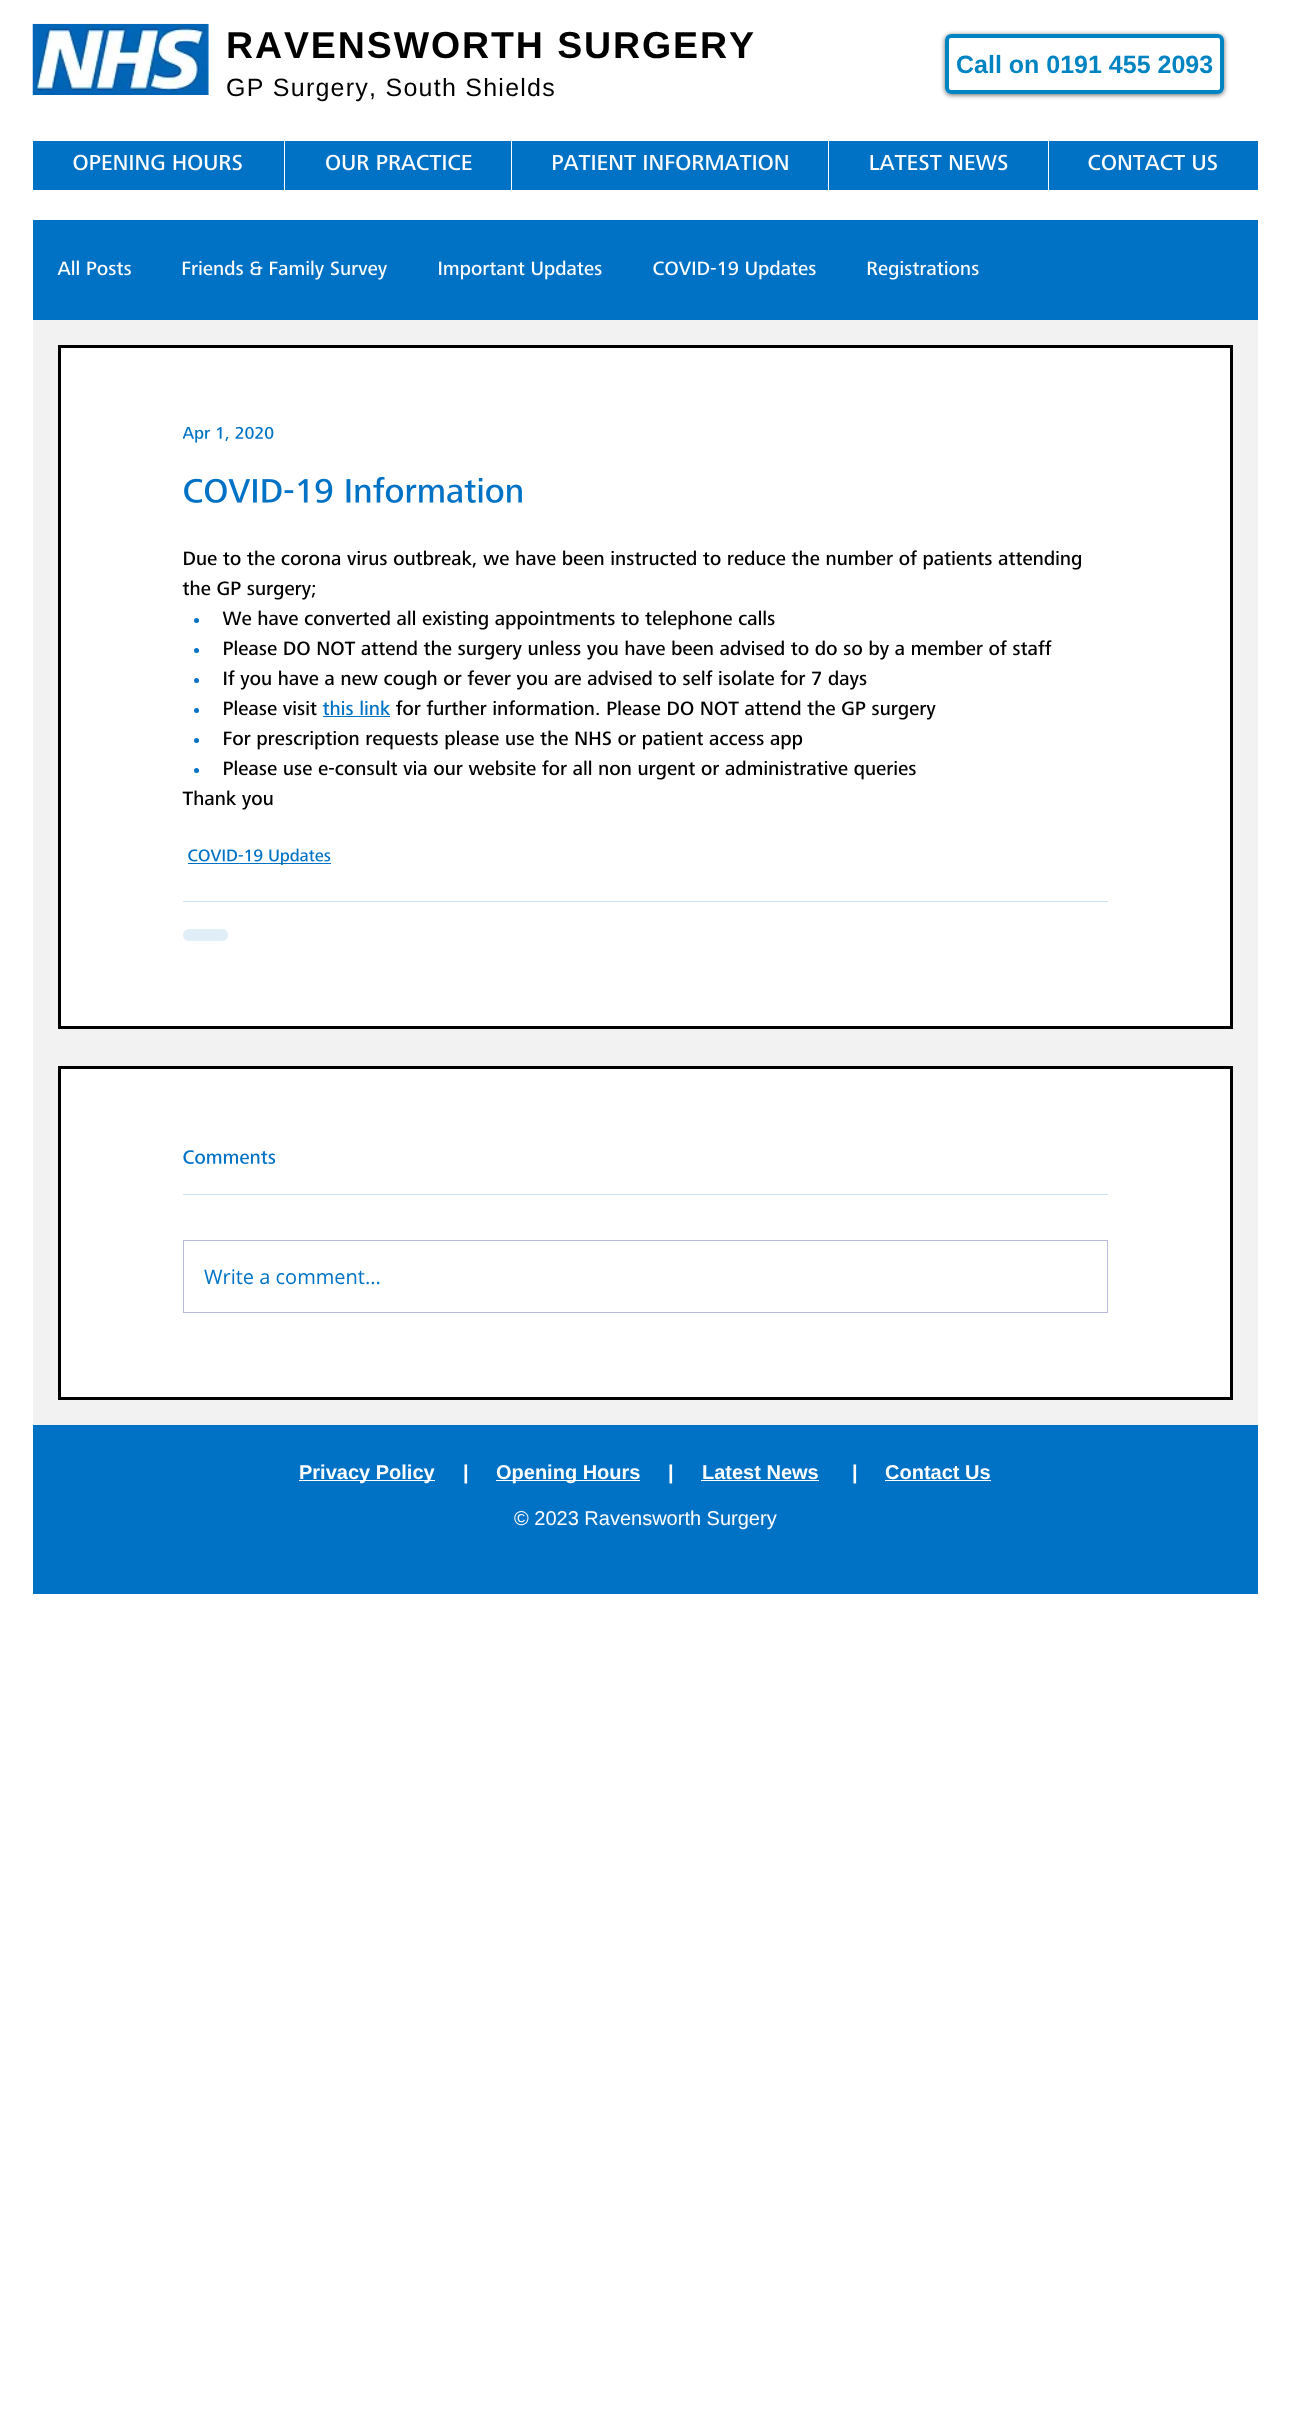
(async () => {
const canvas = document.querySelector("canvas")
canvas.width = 1290
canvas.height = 2434
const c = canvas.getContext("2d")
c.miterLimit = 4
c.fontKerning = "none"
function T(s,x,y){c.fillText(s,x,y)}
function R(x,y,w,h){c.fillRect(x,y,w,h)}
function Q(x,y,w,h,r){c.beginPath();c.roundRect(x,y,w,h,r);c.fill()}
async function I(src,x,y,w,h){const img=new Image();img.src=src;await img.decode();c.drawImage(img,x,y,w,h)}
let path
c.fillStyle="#fff"
R(0,0,1290,2434)
await I("1.png",32,23,177,72)
c.letterSpacing="1.9px"
c.font="bold 37.5px Liberation Sans"
c.fillStyle="#000"
T("RAVENSWORTH SURGERY",226,58)
c.save()
path = new Path2D("M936 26h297v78h-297zm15 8h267c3.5 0 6 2.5 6 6v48c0 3.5-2.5 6-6 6h-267c-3.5 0-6-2.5-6-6v-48c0-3.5 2.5-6 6-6z")
c.clip(path,"evenodd")
c.fillStyle="#00000099"
c.filter="blur(2.5px)"
c.beginPath()
c.roundRect(945,35,279,60,6)
c.fill()
c.filter="none"
c.restore()
c.beginPath()
c.roundRect(947,36,275,56,4)
c.strokeStyle="#0084c1"
c.lineWidth=4
c.stroke()
c.letterSpacing="0px"
c.font="bold 25px Liberation Sans"
c.fillStyle="#0084c1"
T("Call on 0191 455 2093",956,73)
c.letterSpacing="1.25px"
c.font="25px Liberation Sans"
c.fillStyle="#000"
T("GP Surgery, South Shields",226,96)
c.fillStyle="#0072c6"
R(33,141,1225,49)
await I("2.png",73,154,169,17)
c.fillStyle="#fff"
R(284,141,1,49)
await I("3.png",326,154,146,17)
R(511,141,1,49)
await I("4.png",553,154,235,17)
R(828,141,1,49)
await I("5.png",870,154,138,17)
R(1048,141,1,49)
await I("6.png",1088,154,129,17)
c.fillStyle="#f2f2f2"
R(33,320,1225,1105)
c.fillStyle="#0072c6"
R(33,220,1225,100)
await I("7.png",57,260,74,16)
await I("8.png",182,260,205,20)
await I("9.png",439,260,163,20)
await I("10.png",653,260,163,20)
await I("11.png",867,261,112,19)
c.fillStyle="#fff"
c.beginPath()
c.rect(59.5,346.5,1172,681)
c.fill()
c.strokeStyle="#000"
c.lineWidth=3
c.stroke()
await I("12.png",183,426,91,17)
await I("13.png",184,476,338,27)
await I("14.png",184,550,897,20)
await I("15.png",182,580,133,20)
c.fillStyle="#0072c6"
c.beginPath()
c.arc(196.5,620.5,2.5,0,7)
c.fill()
await I("16.png",222,610,553,20)
c.beginPath()
c.arc(196.5,650.5,2.5,0,7)
c.fill()
await I("17.png",224,640,828,20)
c.beginPath()
c.arc(196.5,680.5,2.5,0,7)
c.fill()
await I("18.png",224,670,643,20)
c.beginPath()
c.arc(196.5,710.5,2.5,0,7)
c.fill()
await I("19.png",224,700,93,16)
await I("20.png",322,700,69,16)
await I("21.png",396,700,540,20)
R(323,716,67,1)
c.beginPath()
c.arc(196.5,740.5,2.5,0,7)
c.fill()
await I("22.png",224,730,579,20)
c.beginPath()
c.arc(196.5,770.5,2.5,0,7)
c.fill()
await I("23.png",224,760,692,20)
await I("24.png",182,790,91,20)
R(188,863,143,1)
await I("25.png",188,848,143,17)
c.fillStyle="#cce3f4"
R(183,901,925,1)
c.fillStyle="#e0eef8"
Q(183,929,45,12,6)
c.fillStyle="#fff"
c.beginPath()
c.rect(59.5,1067.5,1172,331)
c.fill()
c.stroke()
await I("26.png",183,1150,93,14)
c.fillStyle="#cce3f4"
R(183,1194,925,1)
c.strokeStyle="#b6b8dc"
c.lineWidth=1
c.strokeRect(183.5,1240.5,924,72)
c.letterSpacing="0px"
c.font="20px Open Sans"
c.fillStyle="#0072c6"
T("Write a comment...",204,1284)
R(33,1425,1225,169)
c.fillStyle="#fff"
R(299,1480,136,1)
c.font="bold 20px Liberation Sans"
T("Privacy Policy",299,1479)
T("|",463,1479)
R(496,1480,144,1)
T("Opening Hours",496,1479)
T("|",668,1479)
T("Latest News",702,1479)
R(701,1480,118,1)
T("|",852,1479)
T("Contact Us",885,1479)
R(885,1480,106,1)
c.font="20px Liberation Sans"
T("© 2023 Ravensworth Surgery",514,1525)
})()
